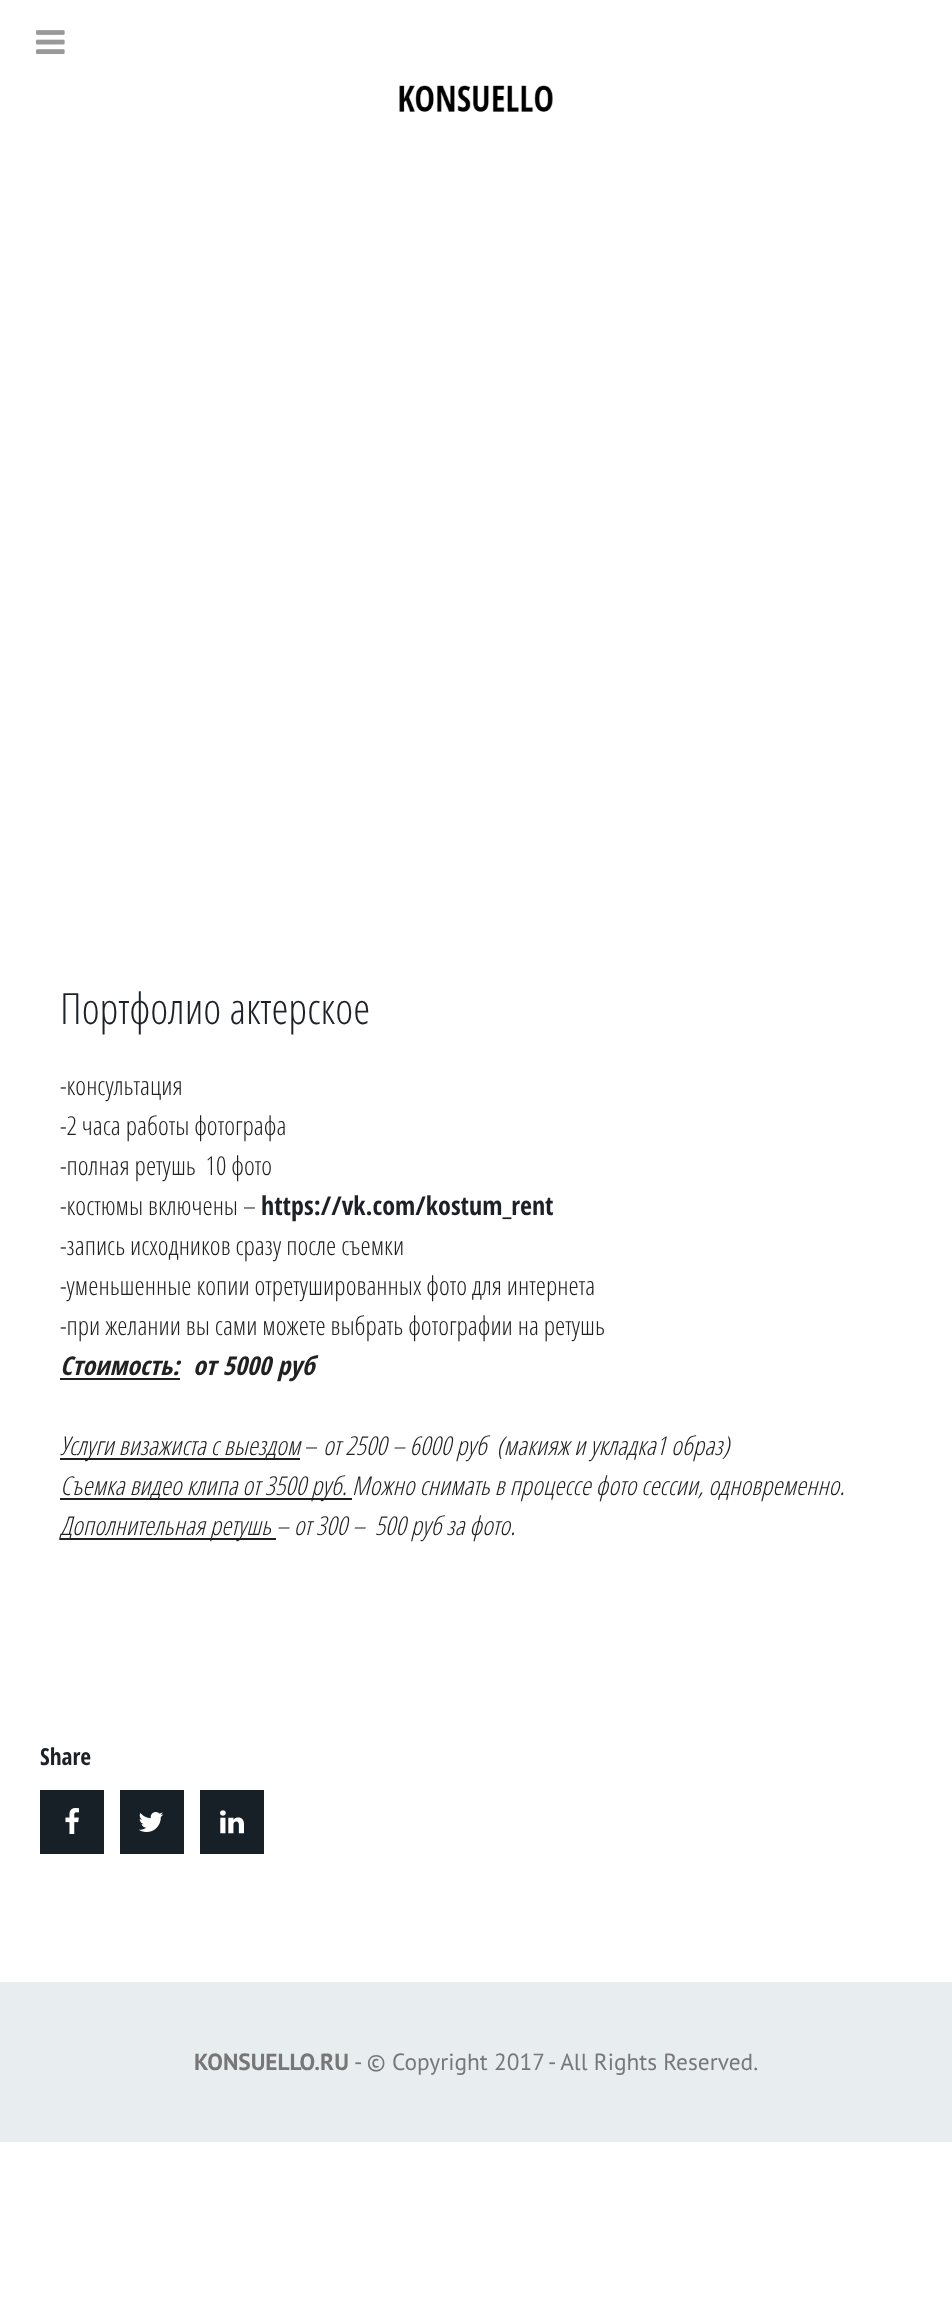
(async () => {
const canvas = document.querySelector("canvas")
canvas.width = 952
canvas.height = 2317
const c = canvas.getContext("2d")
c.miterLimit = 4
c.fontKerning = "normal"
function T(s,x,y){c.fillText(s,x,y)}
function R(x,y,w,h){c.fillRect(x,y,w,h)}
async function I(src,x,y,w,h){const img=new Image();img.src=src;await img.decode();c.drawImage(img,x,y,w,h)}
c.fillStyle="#fff"
R(0,0,952,2317)
await I("1.png",36,30,29,24)
await I("2.png",399,85,154,27)
c.font="300 43.25px Open Sans Condensed"
c.fillStyle="#1d2127"
T("Портфолио актерское",60,1024)
c.font="300 26px Open Sans Condensed"
c.fillStyle="#212121"
T("-консультация",60,1095)
T("-2 часа работы фотографа",60,1135)
T("-полная ретушь  10 фото",60,1175)
T("-костюмы включены –",60,1215)
c.font="bold 26px Open Sans Condensed"
c.fillStyle="#1d2127"
T("https://vk.com/kostum_rent",261,1215)
c.font="300 26px Open Sans Condensed"
c.fillStyle="#212121"
T("-запись исходников сразу после съемки",60,1255)
T("-уменьшенные копии отретушированных фото для интернета",60,1295)
T("-при желании вы сами можете выбрать фотографии на ретушь",60,1335)
c.font="italic bold 26px Open Sans Condensed"
T("Стоимость:",60,1375)
R(60,1378,120,2)
T("от 5000 руб",193,1375)
R(60,1458,240,2)
c.font="italic 300 26px Open Sans Condensed"
T("Услуги визажиста с выездом",60,1455)
c.font="300 26px Open Sans Condensed"
T("–",305,1455)
c.font="italic 300 26px Open Sans Condensed"
T("от 2500 – 6000 руб  (макияж и укладка1 образ)",323,1455)
R(60,1498,292,2)
T("Съемка видео клипа от 3500 руб. Можно снимать в процессе фото сессии, одновременно.",60,1495)
R(60,1538,216,2)
T("Дополнительная ретушь – от 300 –  500 руб за фото.",60,1535)
c.font="bold 23.4px Open Sans Condensed"
c.fillStyle="#1d2127"
T("Share",40,1765)
c.fillStyle="#182027"
R(40,1790,64,64)
await I("3.png",65,1808,14,26)
R(120,1790,64,64)
await I("4.png",138,1812,26,20)
R(200,1790,64,64)
await I("5.png",220,1810,24,24)
c.fillStyle="#e8edf0"
R(0,1982,952,160)
c.font="bold 23.4px PT Sans"
c.fillStyle="#777"
T("KONSUELLO.RU",194,2070)
c.font="23.4px PT Sans"
T("- © Copyright 2017 - All Rights Reserved.",354,2070)
})()
